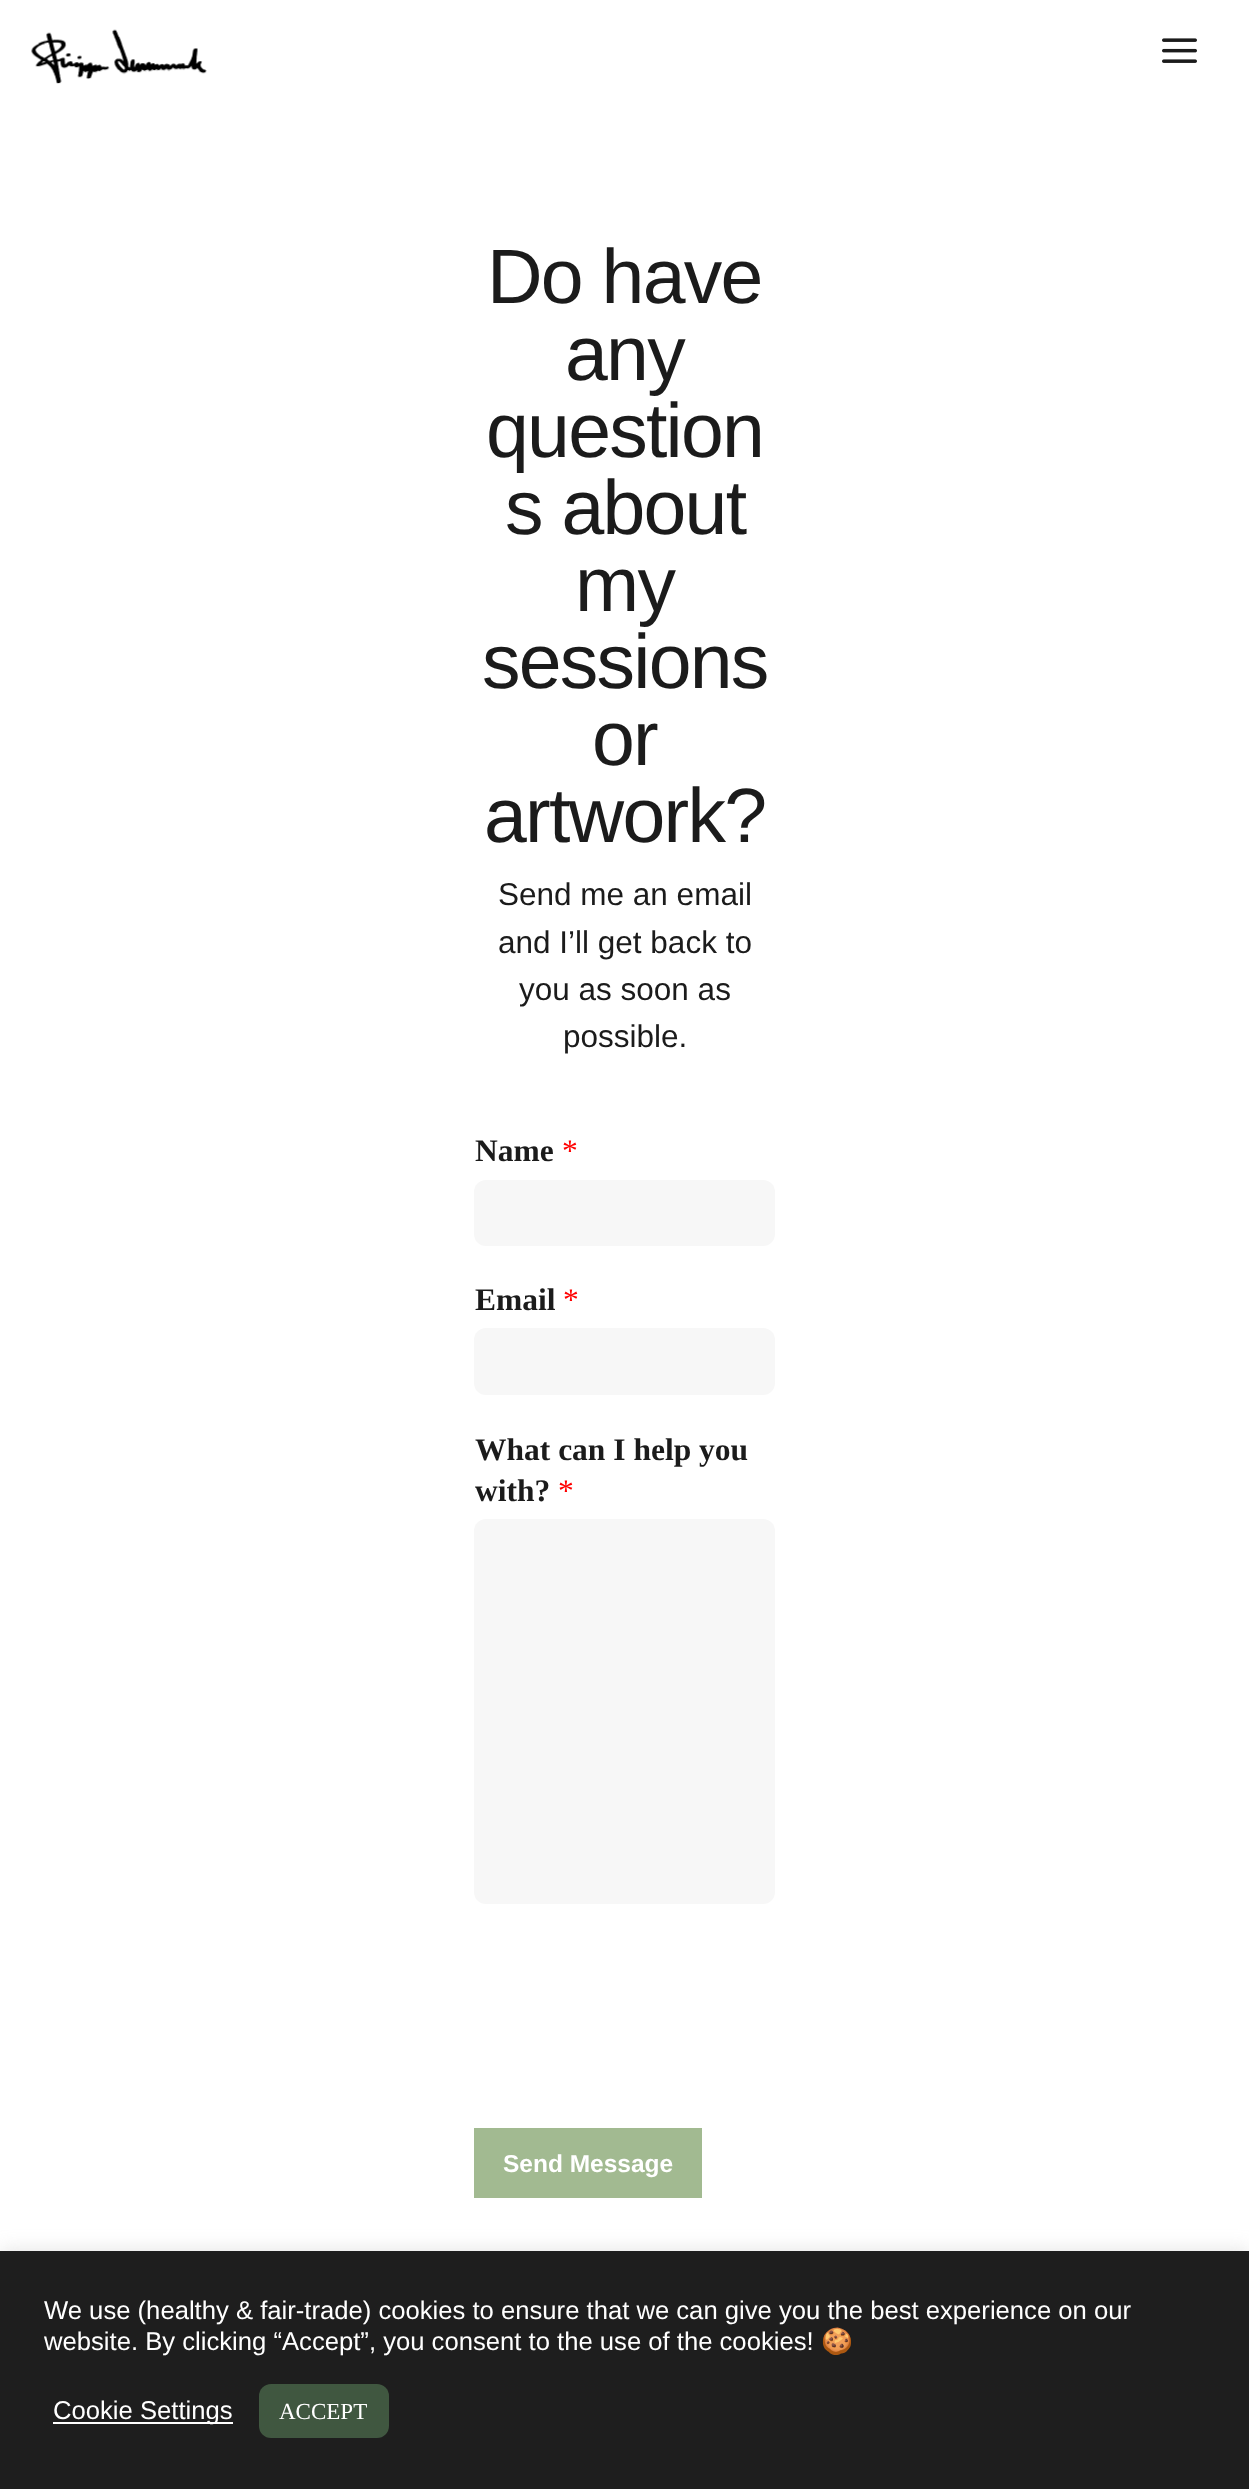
(async () => {
const canvas = document.querySelector("canvas")
canvas.width = 1249
canvas.height = 2489
const c = canvas.getContext("2d")
c.miterLimit = 4
c.fontKerning = "normal"
function T(s,x,y){c.fillText(s,x,y)}
function R(x,y,w,h){c.fillRect(x,y,w,h)}
function Q(x,y,w,h,r){c.beginPath();c.roundRect(x,y,w,h,r);c.fill()}
async function I(src,x,y,w,h){const img=new Image();img.src=src;await img.decode();c.drawImage(img,x,y,w,h)}
c.fillStyle="#fff"
R(0,0,1249,2489)
await I("1.png",31,29,176,55)
await I("2.png",1162,38,35,25)
c.letterSpacing="-1.75px"
c.font="77px Liberation Sans"
c.fillStyle="#1b1b1b"
T("Do have",487,303)
T("any",565,380)
T("question",486,457)
T("s about",505,534)
T("my",575,611)
T("sessions",482,688)
T("or",592,765)
T("artwork?",484,842)
c.letterSpacing="0px"
c.font="31.5px Liberation Sans"
T("Send me an email",498,905)
T("and I’ll get back to",498,953)
T("you as soon as",519,1000)
T("possible.",563,1047)
c.font="bold 31.5px Liberation Serif"
T("Name",475,1161)
c.font="31.5px Liberation Serif"
c.fillStyle="#f00"
T("*",562,1161)
c.fillStyle="#f7f7f7"
Q(474,1180,301,66,12)
c.font="bold 31.5px Liberation Serif"
c.fillStyle="#1b1b1b"
T("Email",475,1310)
c.font="31.5px Liberation Serif"
c.fillStyle="#f00"
T("*",563,1310)
c.fillStyle="#f7f7f7"
Q(474,1328,301,67,12)
c.font="bold 31.5px Liberation Serif"
c.fillStyle="#1b1b1b"
T("What can I help you",475,1460)
T("with?",475,1501)
c.font="31.5px Liberation Serif"
c.fillStyle="#f00"
T("*",558,1501)
c.fillStyle="#f7f7f7"
Q(474,1519,301,385,12)
c.fillStyle="#a2ba91"
R(474,2128,228,70)
c.font="bold 24.5px Liberation Sans"
c.fillStyle="#fff"
T("Send Message",503,2172)
c.fillStyle="#acabab4d"
c.filter="blur(9px)"
c.beginPath()
c.rect(0,2249,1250,240)
c.fill()
c.filter="none"
c.fillStyle="#1e1e1e"
R(0,2251,1249,238)
c.font="25.65px Liberation Sans"
c.fillStyle="#fff"
T("We use (healthy & fair-trade) cookies to ensure that we can give you the best experience on our",44,2319)
T("website. By clicking “Accept”, you consent to the use of the cookies!",44,2350)
c.font="25.65px Noto Color Emoji"
T("🍪",821,2350)
R(53,2422,180,2)
c.font="25.65px Liberation Sans"
T("Cookie Settings",53,2419)
c.fillStyle="#405740"
Q(259,2384,130,54,12)
c.font="23px Liberation Serif"
c.fillStyle="#fff"
T("ACCEPT",279,2419)
})()
